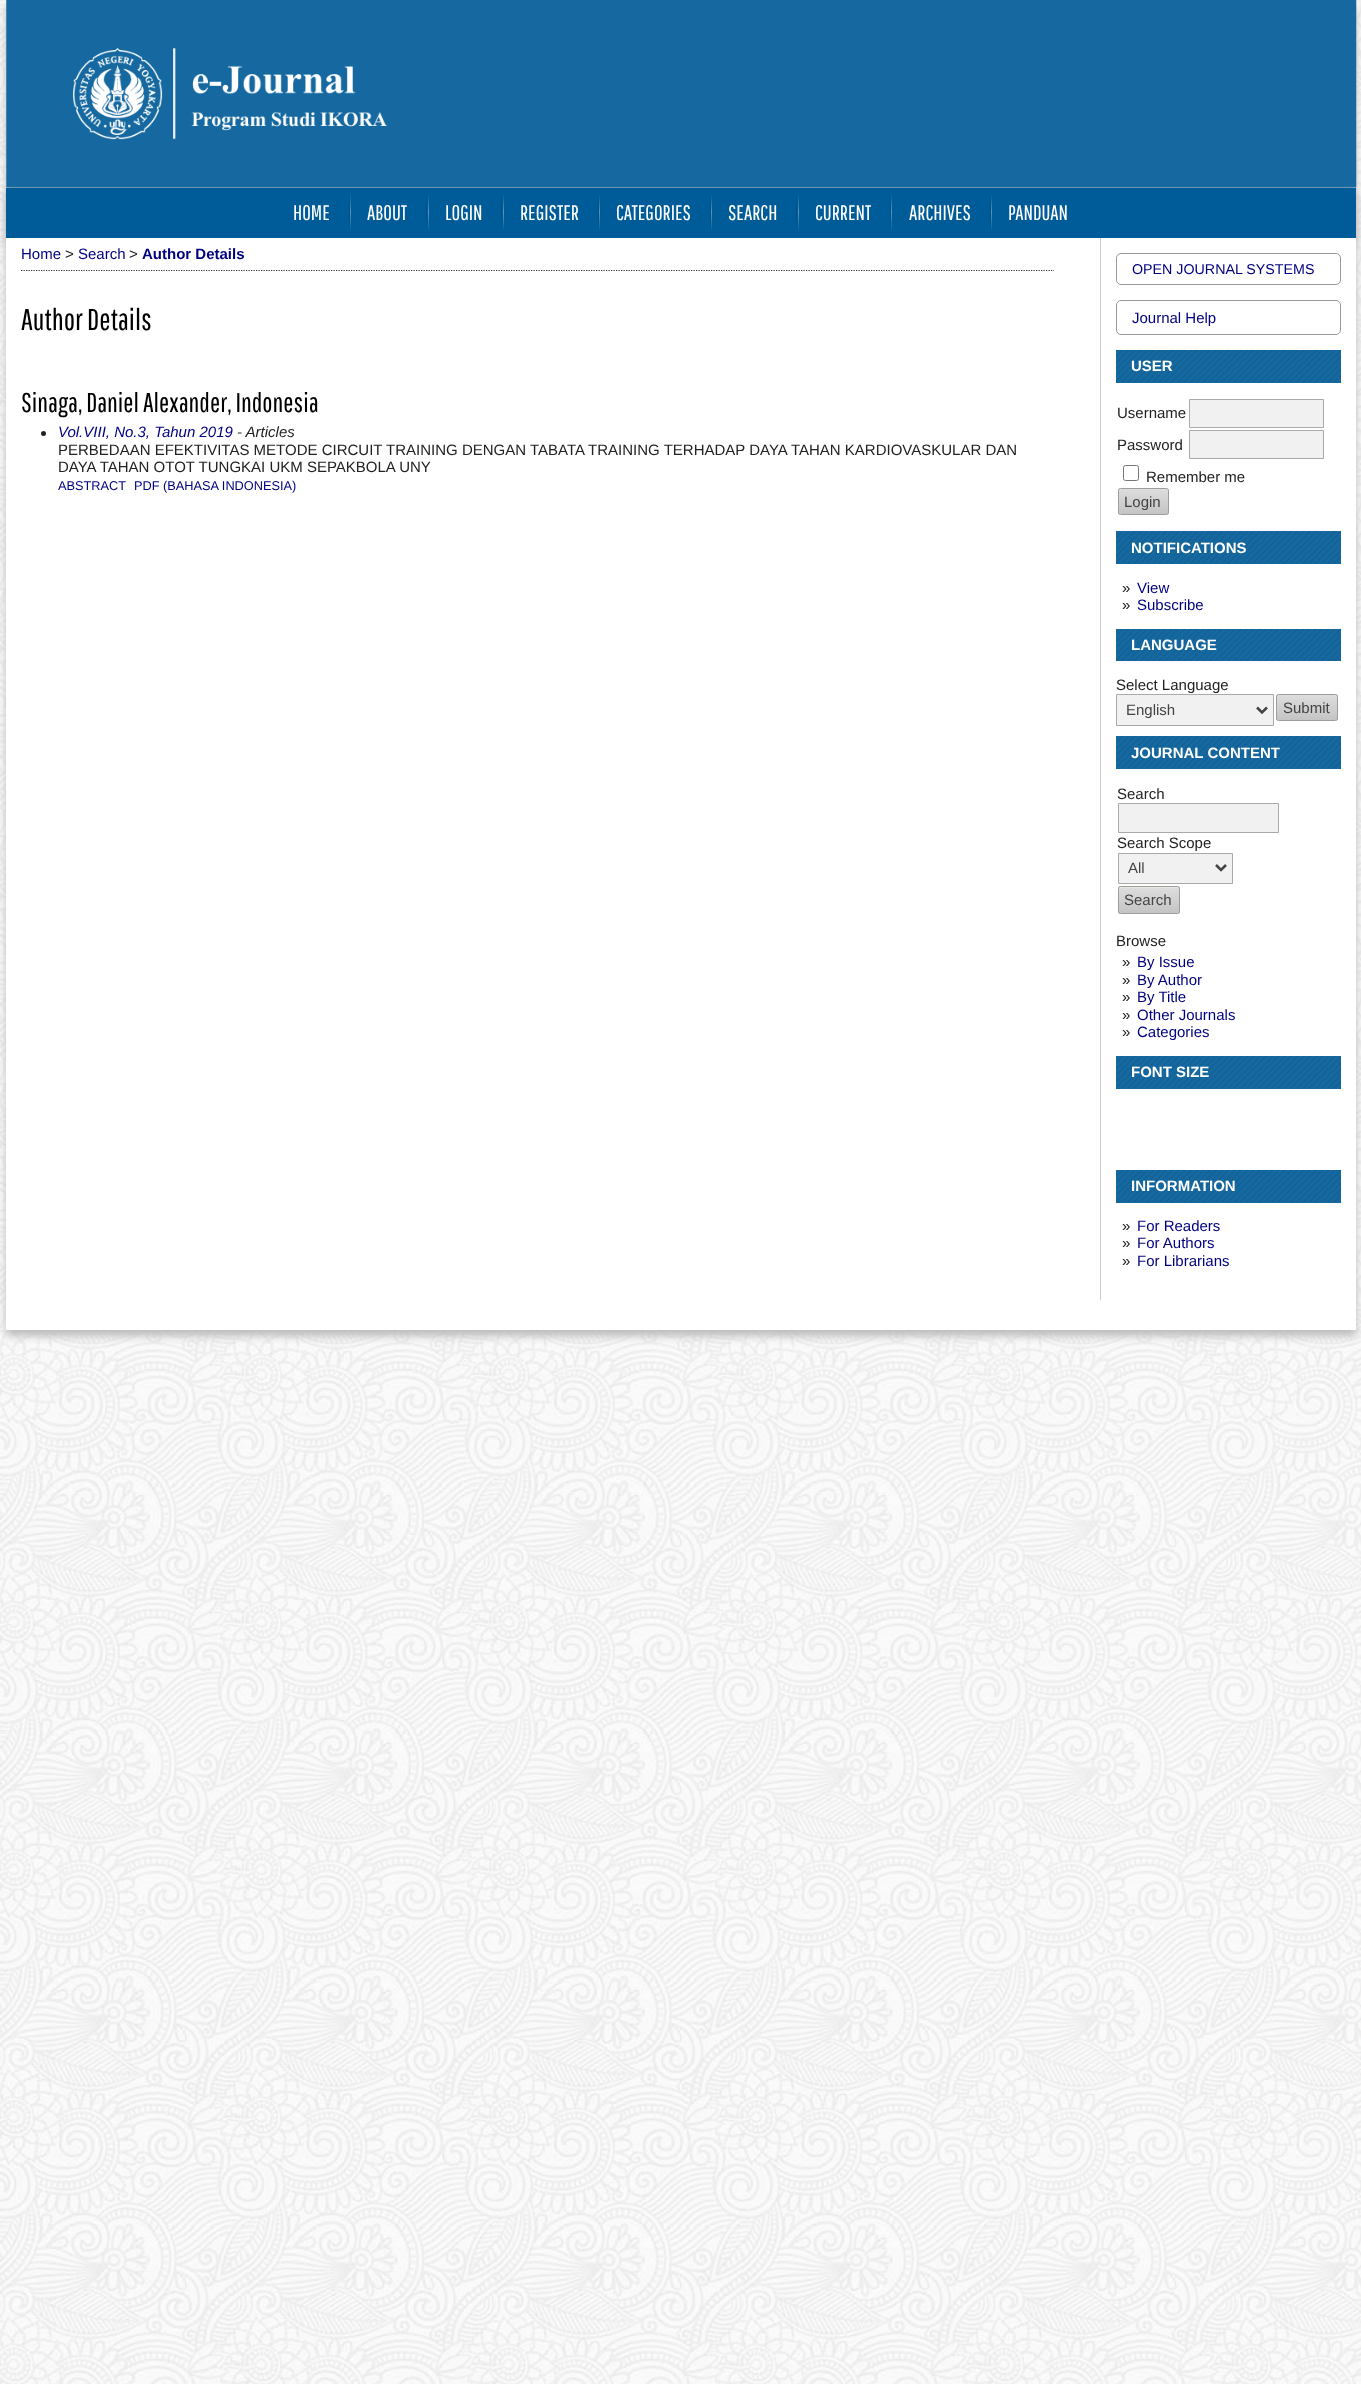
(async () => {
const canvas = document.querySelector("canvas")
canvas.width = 1361
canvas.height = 2384
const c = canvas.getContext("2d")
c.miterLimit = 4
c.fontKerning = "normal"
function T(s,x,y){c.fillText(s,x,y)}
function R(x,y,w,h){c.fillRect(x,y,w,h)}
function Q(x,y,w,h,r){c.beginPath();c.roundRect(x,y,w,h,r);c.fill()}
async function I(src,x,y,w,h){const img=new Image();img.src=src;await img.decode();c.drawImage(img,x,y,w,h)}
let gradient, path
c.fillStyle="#fff"
R(0,0,1361,2384)
await I("1.png",0,0,1361,2384)
await I("2.png",557,187,248,1)
c.fillStyle="#bbb"
c.filter="blur(4px)"
c.beginPath()
c.rect(6,6,1350,238)
c.fill()
c.filter="none"
await I("3.png",6,0,1351,188)
c.filter="blur(4px)"
c.beginPath()
c.rect(6,194,1350,1142)
c.fill()
c.filter="none"
c.fillStyle="#fff"
R(6,238,1350,1092)
c.fillStyle="#005c99"
R(6,188,1350,50)
c.font="21px Pathway Gothic One"
c.fillStyle="#fff"
T("HOME",293,220)
gradient = c.createLinearGradient(349,194,349,231)
gradient.addColorStop(0,"#005c99")
gradient.addColorStop(.5,"#004e82")
gradient.addColorStop(1,"#005c99")
c.fillStyle = gradient
R(349,194,1,37)
gradient = c.createLinearGradient(351,194,351,231)
gradient.addColorStop(0,"#005c99")
gradient.addColorStop(.5,"#5995bd")
gradient.addColorStop(1,"#005c99")
c.fillStyle = gradient
R(350,194,1,37)
c.fillStyle="#fff"
T("ABOUT",367,220)
gradient = c.createLinearGradient(427,194,427,231)
gradient.addColorStop(0,"#005c99")
gradient.addColorStop(.5,"#004e82")
gradient.addColorStop(1,"#005c99")
c.fillStyle = gradient
R(426,194,1,37)
gradient = c.createLinearGradient(428,194,428,231)
gradient.addColorStop(0,"#005c99")
gradient.addColorStop(.5,"#5995bd")
gradient.addColorStop(1,"#005c99")
c.fillStyle = gradient
R(428,194,1,37)
c.fillStyle="#fff"
T("LOGIN",445,220)
gradient = c.createLinearGradient(502,194,502,231)
gradient.addColorStop(0,"#005c99")
gradient.addColorStop(.5,"#004e82")
gradient.addColorStop(1,"#005c99")
c.fillStyle = gradient
R(501,194,1,37)
gradient = c.createLinearGradient(503,194,503,231)
gradient.addColorStop(0,"#005c99")
gradient.addColorStop(.5,"#5995bd")
gradient.addColorStop(1,"#005c99")
c.fillStyle = gradient
R(503,194,1,37)
c.fillStyle="#fff"
T("REGISTER",520,220)
gradient = c.createLinearGradient(598,194,598,231)
gradient.addColorStop(0,"#005c99")
gradient.addColorStop(.5,"#004e82")
gradient.addColorStop(1,"#005c99")
c.fillStyle = gradient
R(598,194,1,37)
gradient = c.createLinearGradient(599,194,599,231)
gradient.addColorStop(0,"#005c99")
gradient.addColorStop(.5,"#5995bd")
gradient.addColorStop(1,"#005c99")
c.fillStyle = gradient
R(599,194,1,37)
c.fillStyle="#fff"
T("CATEGORIES",616,220)
gradient = c.createLinearGradient(711,194,711,231)
gradient.addColorStop(0,"#005c99")
gradient.addColorStop(.5,"#004e82")
gradient.addColorStop(1,"#005c99")
c.fillStyle = gradient
R(710,194,1,37)
gradient = c.createLinearGradient(712,194,712,231)
gradient.addColorStop(0,"#005c99")
gradient.addColorStop(.5,"#5995bd")
gradient.addColorStop(1,"#005c99")
c.fillStyle = gradient
R(711,194,1,37)
c.fillStyle="#fff"
T("SEARCH",728,220)
gradient = c.createLinearGradient(797,194,797,231)
gradient.addColorStop(0,"#005c99")
gradient.addColorStop(.5,"#004e82")
gradient.addColorStop(1,"#005c99")
c.fillStyle = gradient
R(796,194,1,37)
gradient = c.createLinearGradient(798,194,798,231)
gradient.addColorStop(0,"#005c99")
gradient.addColorStop(.5,"#5995bd")
gradient.addColorStop(1,"#005c99")
c.fillStyle = gradient
R(798,194,1,37)
c.fillStyle="#fff"
T("CURRENT",815,220)
gradient = c.createLinearGradient(891,194,891,231)
gradient.addColorStop(0,"#005c99")
gradient.addColorStop(.5,"#004e82")
gradient.addColorStop(1,"#005c99")
c.fillStyle = gradient
R(890,194,1,37)
gradient = c.createLinearGradient(892,194,892,231)
gradient.addColorStop(0,"#005c99")
gradient.addColorStop(.5,"#5995bd")
gradient.addColorStop(1,"#005c99")
c.fillStyle = gradient
R(891,194,1,37)
c.fillStyle="#fff"
T("ARCHIVES",909,220)
gradient = c.createLinearGradient(991,194,991,231)
gradient.addColorStop(0,"#005c99")
gradient.addColorStop(.5,"#004e82")
gradient.addColorStop(1,"#005c99")
c.fillStyle = gradient
R(990,194,1,37)
gradient = c.createLinearGradient(992,194,992,231)
gradient.addColorStop(0,"#005c99")
gradient.addColorStop(.5,"#5995bd")
gradient.addColorStop(1,"#005c99")
c.fillStyle = gradient
R(991,194,1,37)
c.fillStyle="#fff"
T("PANDUAN",1008,220)
path = new Path2D("M21 270.5h1033")
c.strokeStyle="#333"
c.lineWidth=1.2
c.setLineDash([1.25,1.25])
c.stroke(path)
c.font="15px Liberation Sans"
c.fillStyle="#000080"
T("Home",21,259)
c.fillStyle="#222"
T(">",65,259)
c.fillStyle="#000080"
T("Search",78,259)
c.fillStyle="#222"
T(">",129,259)
c.font="bold 15px Liberation Sans"
c.fillStyle="#000080"
T("Author Details",142,259)
c.font="30px Pathway Gothic One"
c.fillStyle="#000"
T("Author Details",21,330)
c.font="27px Pathway Gothic One"
T("Sinaga, Daniel Alexander, Indonesia",21,412)
c.fillStyle="#222"
c.beginPath()
c.arc(43.5,433.5,2.5,0,7)
c.fill()
c.font="italic 15px Liberation Sans"
c.fillStyle="#000080"
T("Vol.VIII, No.3, Tahun 2019",58,437)
c.fillStyle="#222"
T("- Articles",237,437)
c.font="15px Liberation Sans"
T("PERBEDAAN EFEKTIVITAS METODE CIRCUIT TRAINING DENGAN TABATA TRAINING TERHADAP DAYA TAHAN KARDIOVASKULAR DAN",58,455)
T("DAYA TAHAN OTOT TUNGKAI UKM SEPAKBOLA UNY",58,472)
c.font="12.75px Liberation Sans"
c.fillStyle="#000080"
T("ABSTRACT",58,490)
T("PDF (BAHASA INDONESIA)",134,490)
c.fillStyle="#ccc"
R(1100,238,1,1062)
c.beginPath()
c.roundRect(1116.5,253.5,224,31,4.5)
c.strokeStyle="#999"
c.lineWidth=1
c.setLineDash([])
c.stroke()
c.font="14.25px Liberation Sans"
c.fillStyle="#000080"
T("OPEN JOURNAL SYSTEMS",1132,274)
c.beginPath()
c.roundRect(1116.5,300.5,224,34,4.5)
c.stroke()
c.font="15px Liberation Sans"
T("Journal Help",1132,323)
c.fillStyle="#1569a0"
R(1116,350,225,33)
await I("4.png",1116,350,225,33)
c.font="bold 15px Liberation Sans"
c.fillStyle="#fff"
T("USER",1131,371)
c.font="15px Liberation Sans"
c.fillStyle="#222"
T("Username",1117,418)
c.fillStyle="#f1f1f1"
c.beginPath()
c.rect(1189.5,399.5,134,28)
c.fill()
c.strokeStyle="#aaa"
c.stroke()
c.fillStyle="#222"
T("Password",1117,450)
c.fillStyle="#f1f1f1"
c.beginPath()
c.rect(1189.5,430.5,134,28)
c.fill()
c.stroke()
c.beginPath()
c.roundRect(1123.5,465.5,15,15,2)
c.strokeStyle="#767676"
c.stroke()
c.fillStyle="#222"
T("Remember me",1146,482)
c.save()
c.beginPath()
c.roundRect(1118,488,51,27,2.5)
c.clip()
gradient = c.createLinearGradient(1143,489,1143,514)
gradient.addColorStop(0,"#ddd")
gradient.addColorStop(1,"#c4c4c4")
c.fillStyle = gradient
R(1118,489,51,25)
c.restore()
c.beginPath()
c.roundRect(1118.5,488.5,50,26,2)
c.strokeStyle="#9d9d9d"
c.stroke()
c.fillStyle="#444"
T("Login",1124,507)
c.fillStyle="#1569a0"
R(1116,531,225,33)
await I("5.png",1116,531,225,33)
c.font="bold 15px Liberation Sans"
c.fillStyle="#fff"
T("NOTIFICATIONS",1131,553)
c.font="15px Liberation Sans"
c.fillStyle="#222"
T("»",1122,593)
c.fillStyle="#000080"
T("View",1137,593)
c.fillStyle="#222"
T("»",1122,610)
c.fillStyle="#000080"
T("Subscribe",1137,610)
c.fillStyle="#1569a0"
R(1116,629,225,32)
await I("6.png",1116,629,225,32)
c.font="bold 15px Liberation Sans"
c.fillStyle="#fff"
T("LANGUAGE",1131,650)
c.font="15px Liberation Sans"
c.fillStyle="#222"
T("Select Language",1116,690)
c.fillStyle="#f1f1f1"
c.beginPath()
c.rect(1116.5,694.5,157,31)
c.fill()
c.strokeStyle="#aaa"
c.stroke()
path = new Path2D("M1257 707.5l5 5l5-5")
c.strokeStyle="#444"
c.lineWidth=2.5
c.stroke(path)
c.fillStyle="#444"
T("English",1126,715)
c.save()
c.beginPath()
c.roundRect(1276,694,62,27,2.5)
c.clip()
gradient = c.createLinearGradient(1307,695,1307,720)
gradient.addColorStop(0,"#ddd")
gradient.addColorStop(1,"#c4c4c4")
c.fillStyle = gradient
R(1276,695,62,25)
c.restore()
c.beginPath()
c.roundRect(1276.5,694.5,61,26,2)
c.strokeStyle="#9d9d9d"
c.lineWidth=1
c.stroke()
T("Submit",1283,713)
c.fillStyle="#1569a0"
R(1116,736,225,33)
await I("7.png",1116,736,225,33)
c.font="bold 15px Liberation Sans"
c.fillStyle="#fff"
T("JOURNAL CONTENT",1131,758)
c.font="15px Liberation Sans"
c.fillStyle="#222"
T("Search",1117,799)
c.fillStyle="#f1f1f1"
c.beginPath()
c.rect(1118.5,803.5,160,29)
c.fill()
c.strokeStyle="#aaa"
c.stroke()
c.fillStyle="#222"
T("Search Scope",1117,848)
c.fillStyle="#f1f1f1"
c.beginPath()
c.rect(1118.5,853.5,114,30)
c.fill()
c.stroke()
path = new Path2D("M1216 865l5 5l5-5")
c.strokeStyle="#444"
c.lineWidth=2.5
c.stroke(path)
c.fillStyle="#444"
T("All",1128,873)
c.fillStyle="#e8e8e1"
Q(1118,886,62,28,2.5)
gradient = c.createLinearGradient(1149,888,1149,913)
gradient.addColorStop(0,"#ddd")
gradient.addColorStop(1,"#c4c4c4")
c.fillStyle = gradient
R(1118,888,62,25)
c.beginPath()
c.roundRect(1118.5,886.5,61,27,2)
c.strokeStyle="#9d9d9d"
c.lineWidth=1
c.stroke()
c.fillStyle="#444"
T("Search",1124,905)
c.fillStyle="#222"
T("Browse",1116,946)
T("»",1122,967)
c.fillStyle="#000080"
T("By Issue",1137,967)
c.fillStyle="#222"
T("»",1122,985)
c.fillStyle="#000080"
T("By Author",1137,985)
c.fillStyle="#222"
T("»",1122,1002)
c.fillStyle="#000080"
T("By Title",1137,1002)
c.fillStyle="#222"
T("»",1122,1020)
c.fillStyle="#000080"
T("Other Journals",1137,1020)
c.fillStyle="#222"
T("»",1122,1037)
c.fillStyle="#000080"
T("Categories",1137,1037)
c.fillStyle="#1569a0"
R(1116,1056,225,33)
await I("5.png",1116,1056,225,33)
c.font="bold 15px Liberation Sans"
c.fillStyle="#fff"
T("FONT SIZE",1131,1077)
c.fillStyle="#1569a0"
R(1116,1170,225,33)
await I("4.png",1116,1170,225,33)
c.fillStyle="#fff"
T("INFORMATION",1131,1191)
c.font="15px Liberation Sans"
c.fillStyle="#222"
T("»",1122,1231)
c.fillStyle="#000080"
T("For Readers",1137,1231)
c.fillStyle="#222"
T("»",1122,1248)
c.fillStyle="#000080"
T("For Authors",1137,1248)
c.fillStyle="#222"
T("»",1122,1266)
c.fillStyle="#000080"
T("For Librarians",1137,1266)
})()
